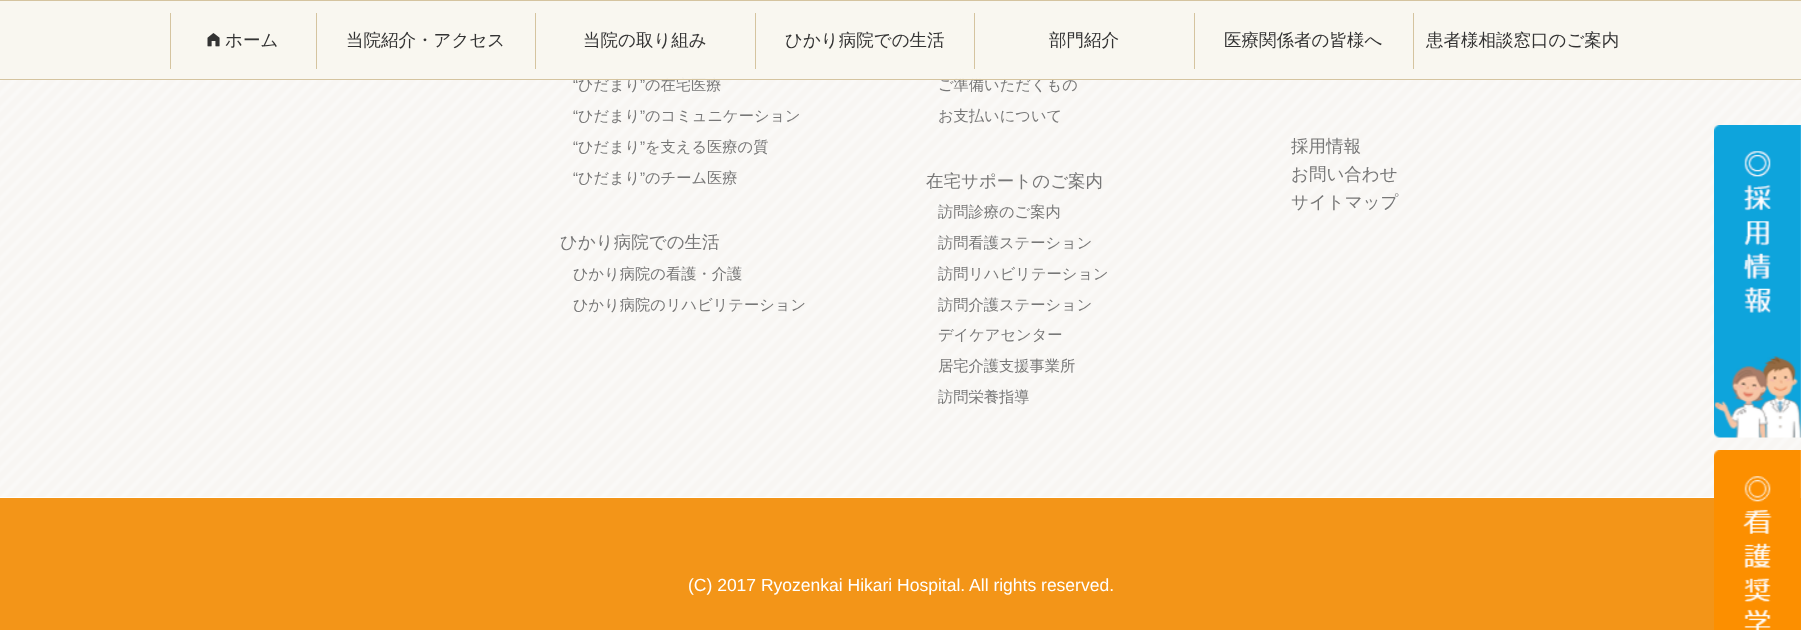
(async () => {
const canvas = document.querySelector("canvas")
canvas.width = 1801
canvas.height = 630
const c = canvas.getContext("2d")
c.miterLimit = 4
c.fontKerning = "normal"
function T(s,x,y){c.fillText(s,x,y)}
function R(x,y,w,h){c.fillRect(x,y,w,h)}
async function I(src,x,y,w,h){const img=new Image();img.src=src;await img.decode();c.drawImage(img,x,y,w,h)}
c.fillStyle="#fff"
R(0,0,1801,630)
await I("2.png",0,1,1801,496)
c.font="500 15.25px WenQuanYi Zen Hei"
c.fillStyle="#777"
T("ひだまり",578,90)
T("の在宅医療",645,90)
T("ご準備いただくもの",938,90)
c.fillStyle="#ffffffd9"
R(0,1,1801,78)
c.fillStyle="#f7f3eab3"
R(0,1,1801,78)
c.fillStyle="#d5c49f"
R(0,0,1801,1)
c.font="15.25px Liberation Sans"
c.fillStyle="#777"
T("“",573,90)
T("”",640,90)
c.fillStyle="#d5c49f"
R(0,79,1801,1)
R(170,13,1,56)
await I("1.png",207,33,13,14)
c.font="500 17.5px WenQuanYi Zen Hei"
c.fillStyle="#333"
T("ホーム",225,46)
c.fillStyle="#d5c49f"
R(316,13,1,56)
c.fillStyle="#333"
T("当院紹介・アクセス",346,46)
c.fillStyle="#d5c49f"
R(535,13,1,56)
c.fillStyle="#333"
T("当院の取り組み",583,46)
c.fillStyle="#d5c49f"
R(755,13,1,56)
c.fillStyle="#333"
T("ひかり病院での生活",785,46)
c.fillStyle="#d5c49f"
R(974,13,1,56)
c.fillStyle="#333"
T("部門紹介",1049,46)
c.fillStyle="#d5c49f"
R(1194,13,1,56)
c.fillStyle="#333"
T("医療関係者の皆様へ",1224,46)
c.fillStyle="#d5c49f"
R(1413,13,1,56)
c.fillStyle="#333"
T("患者様相談窓口のご案内",1426,46)
c.font="15.25px Liberation Sans"
c.fillStyle="#777"
T("“",573,121)
c.font="500 15.25px WenQuanYi Zen Hei"
T("ひだまり",578,121)
c.font="15.25px Liberation Sans"
T("”",640,121)
c.font="500 15.25px WenQuanYi Zen Hei"
T("のコミュニケーション",645,121)
c.font="15.25px Liberation Sans"
T("“",573,152)
c.font="500 15.25px WenQuanYi Zen Hei"
T("ひだまり",578,152)
c.font="15.25px Liberation Sans"
T("”",640,152)
c.font="500 15.25px WenQuanYi Zen Hei"
T("を支える医療の質",645,152)
c.font="15.25px Liberation Sans"
T("“",573,183)
c.font="500 15.25px WenQuanYi Zen Hei"
T("ひだまり",578,183)
c.font="15.25px Liberation Sans"
T("”",640,183)
c.font="500 15.25px WenQuanYi Zen Hei"
T("のチーム医療",645,183)
c.font="500 17.5px WenQuanYi Zen Hei"
T("ひかり病院での生活",560,248)
c.font="500 15.25px WenQuanYi Zen Hei"
T("ひかり病院の看護・介護",573,279)
T("ひかり病院のリハビリテーション",573,310)
T("お支払いについて",938,121)
c.font="500 17.5px WenQuanYi Zen Hei"
T("在宅サポートのご案内",926,187)
c.font="500 15.25px WenQuanYi Zen Hei"
T("訪問診療のご案内",938,217)
T("訪問看護ステーション",938,248)
T("訪問リハビリテーション",938,279)
T("訪問介護ステーション",938,310)
T("デイケアセンター",938,340)
T("居宅介護支援事業所",938,371)
T("訪問栄養指導",938,402)
c.font="500 17.5px WenQuanYi Zen Hei"
T("採用情報",1291,152)
T("お問い合わせ",1291,180)
T("サイトマップ",1291,208)
await I("3.png",1714,125,87,313)
c.fillStyle="#f39518"
R(0,498,1801,132)
await I("4.png",1714,450,87,180)
c.font="17.5px Liberation Sans"
c.fillStyle="#fff"
T("(C) 2017 Ryozenkai Hikari Hospital. All rights reserved.",688,591)
})()
